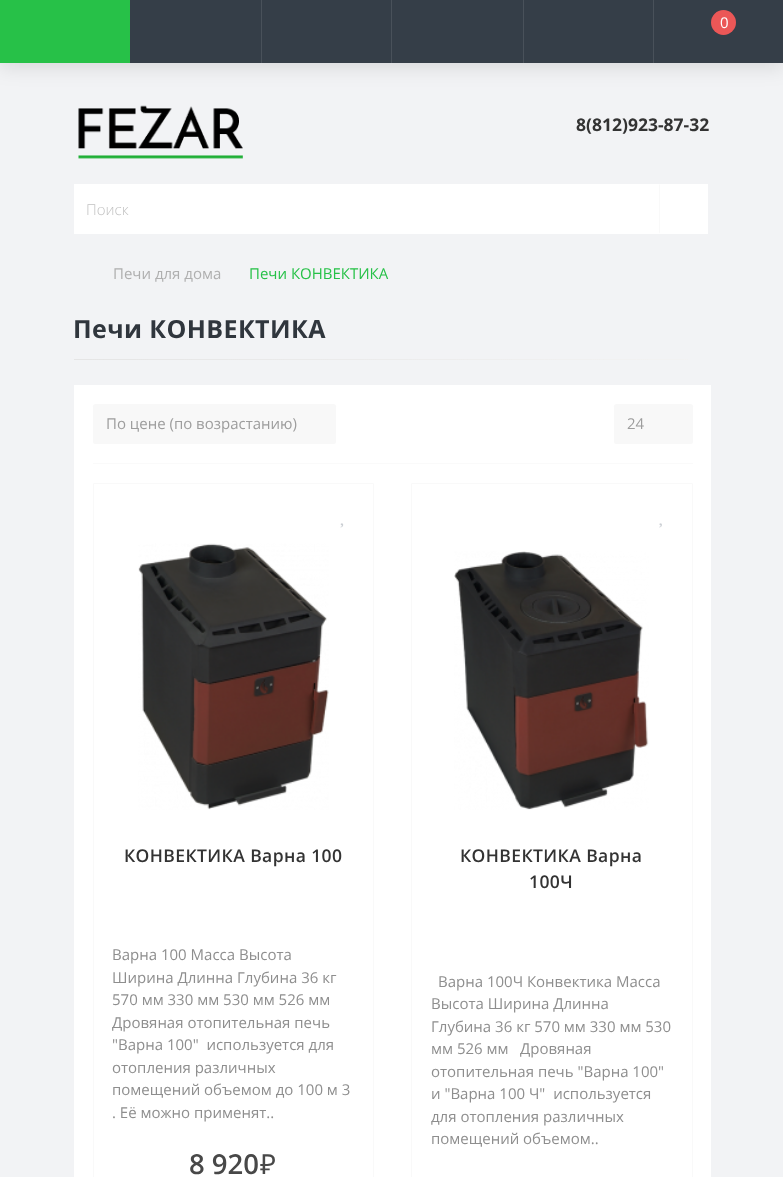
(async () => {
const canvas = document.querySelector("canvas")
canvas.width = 783
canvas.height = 1177
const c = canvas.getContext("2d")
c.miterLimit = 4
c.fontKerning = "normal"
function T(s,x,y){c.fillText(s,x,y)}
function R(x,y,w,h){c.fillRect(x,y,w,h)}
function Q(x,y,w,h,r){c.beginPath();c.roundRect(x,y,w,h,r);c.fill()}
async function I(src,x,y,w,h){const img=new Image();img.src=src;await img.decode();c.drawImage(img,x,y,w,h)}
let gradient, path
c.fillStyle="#f2f3f5"
R(0,0,783,1177)
c.fillStyle="#0000001a"
c.filter="blur(9.5px)"
c.beginPath()
c.rect(0,5,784,63)
c.fill()
c.filter="none"
c.fillStyle="#353e48"
R(130,0,653,63)
c.fillStyle="#27c148"
R(0,0,130,63)
c.fillStyle="#49515a"
R(261,0,1,63)
R(391,0,1,63)
R(523,0,1,63)
R(653,0,1,63)
c.fillStyle="#eb5757"
c.beginPath()
c.arc(723.5,22.5,12.5,0,7)
c.fill()
c.font="15px Open Sans"
c.fillStyle="#fff"
T("0",720,28)
await I("1.png",78,105,165,54)
c.font="bold 17.5px Open Sans"
c.fillStyle="#333"
T("8(812)923-87-32",576,131)
c.fillStyle="#fff"
R(74,184,634,50)
c.font="300 15px Open Sans"
c.fillStyle="#c2c2c2"
T("Поиск",86,215)
c.fillStyle="#f9f9f9"
path = new Path2D("M659 234v-50l1 1v47z")
c.fill(path)
c.font="15px Open Sans"
c.fillStyle="#afafaf"
T("Печи для дома",113,279)
c.fillStyle="#27c148"
T("Печи КОНВЕКТИКА",249,279)
c.letterSpacing="0.4px"
c.font="bold 25px Open Sans"
c.fillStyle="#30363d"
T("Печи КОНВЕКТИКА",73,338)
gradient = c.createLinearGradient(74,360,711,359)
gradient.addColorStop(0,"#e5e5e5")
gradient.addColorStop(1,"#f3f3f3")
c.fillStyle = gradient
R(74,359,614,1)
c.fillStyle="#fff"
R(74,385,637,792)
c.fillStyle="#fafafa"
R(93,463,600,1)
c.fillStyle="#f8f8f8"
Q(93,404,243,40,2.5)
c.letterSpacing="0px"
c.font="15px Open Sans"
c.fillStyle="#9d9d9d"
T("По цене (по возрастанию)",106,429)
c.fillStyle="#f8f8f8"
Q(614,404,79,40,2.5)
c.fillStyle="#9d9d9d"
T("24",627,429)
c.beginPath()
c.roundRect(93.5,483.5,280,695,.5)
c.strokeStyle="#f9f9f9"
c.stroke()
await I("2.png",340,523,4,5)
await I("3.png",138,543,191,267)
c.letterSpacing="0.4px"
c.font="600 17.5px Open Sans"
c.fillStyle="#333"
T("КОНВЕКТИКА Варна 100",124,862)
c.letterSpacing="0px"
c.font="15px Open Sans"
c.fillStyle="#8e8e8e"
T("Варна 100 Масса Высота",112,960)
T("Ширина Длинна Глубина 36 кг",112,983)
T("570 мм 330 мм 530 мм 526 мм",112,1005)
T("Дровяная отопительная печь",112,1028)
T("\"Варна 100\"  используется для",112,1050)
T("отопления различных",112,1073)
T("помещений объемом до 100 м 3",112,1095)
T(". Её можно применят..",112,1118)
c.font="600 27.5px Open Sans"
c.fillStyle="#484848"
T("8 920",189,1174)
c.font="27.5px Noto Sans"
T("₽",260,1174)
c.beginPath()
c.roundRect(411.5,483.5,281,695,.5)
c.stroke()
await I("4.png",659,523,3,5)
await I("5.png",454,551,195,259)
c.letterSpacing="0.4px"
c.font="600 17.5px Open Sans"
c.fillStyle="#333"
T("КОНВЕКТИКА Варна",460,862)
T("100Ч",529,888)
c.letterSpacing="0px"
c.font="15px Open Sans"
c.fillStyle="#8e8e8e"
T("Варна 100Ч Конвектика Масса",438,987)
T("Высота Ширина Длинна",431,1009)
T("Глубина 36 кг 570 мм 330 мм 530",431,1032)
T("мм 526 мм",431,1054)
T("Дровяная",520,1054)
T("отопительная печь \"Варна 100\"",431,1077)
T("и \"Варна 100 Ч\"  используется",431,1099)
T("для отопления различных",431,1122)
T("помещений объемом..",431,1144)
})()
